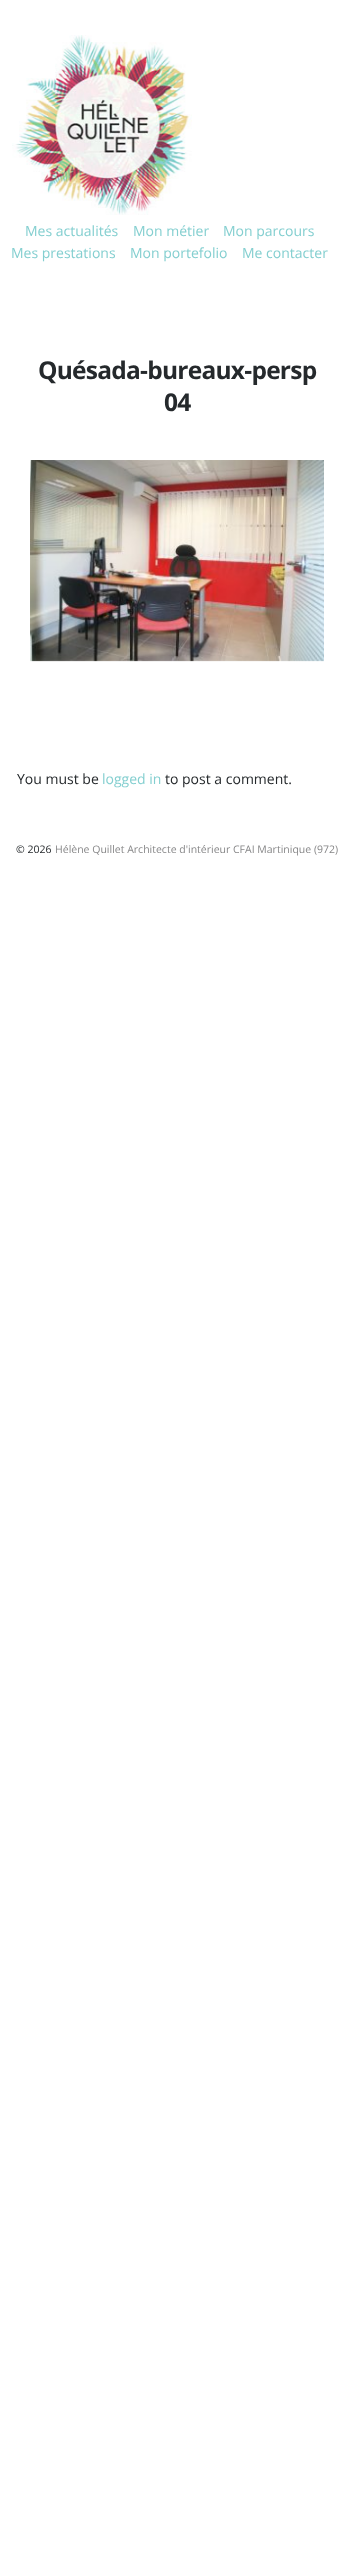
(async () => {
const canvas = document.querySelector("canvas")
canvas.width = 354
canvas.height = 2567
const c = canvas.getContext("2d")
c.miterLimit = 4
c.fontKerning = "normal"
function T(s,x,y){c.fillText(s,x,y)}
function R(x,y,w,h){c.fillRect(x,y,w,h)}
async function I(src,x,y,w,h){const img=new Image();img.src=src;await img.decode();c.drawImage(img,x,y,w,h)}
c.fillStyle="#fff"
R(0,0,354,2567)
await I("1.png",12,35,180,180)
c.font="14px Open Sans"
c.fillStyle="#84cfd0"
T("Mes actualités",25,236)
T("Mon métier",133,236)
T("Mon parcours",223,236)
T("Mes prestations",11,258)
T("Mon portefolio",130,258)
T("Me contacter",242,258)
c.letterSpacing="-0.75px"
c.font="bold 24.5px Open Sans"
c.fillStyle="#25292c"
T("Quésada-bureaux-persp",38,379)
T("04",164,411)
await I("2.png",30,460,294,202)
c.letterSpacing="0px"
c.font="14px Open Sans"
T("You must be",17,784)
c.fillStyle="#84cfd0"
T("logged in",102,784)
c.fillStyle="#25292c"
T("to post a comment.",165,784)
c.font="10.5px Open Sans"
T("© 2026",16,853)
c.fillStyle="#878788"
T("Hélène Quillet Architecte d'intérieur CFAI Martinique (972)",55,853)
})()
